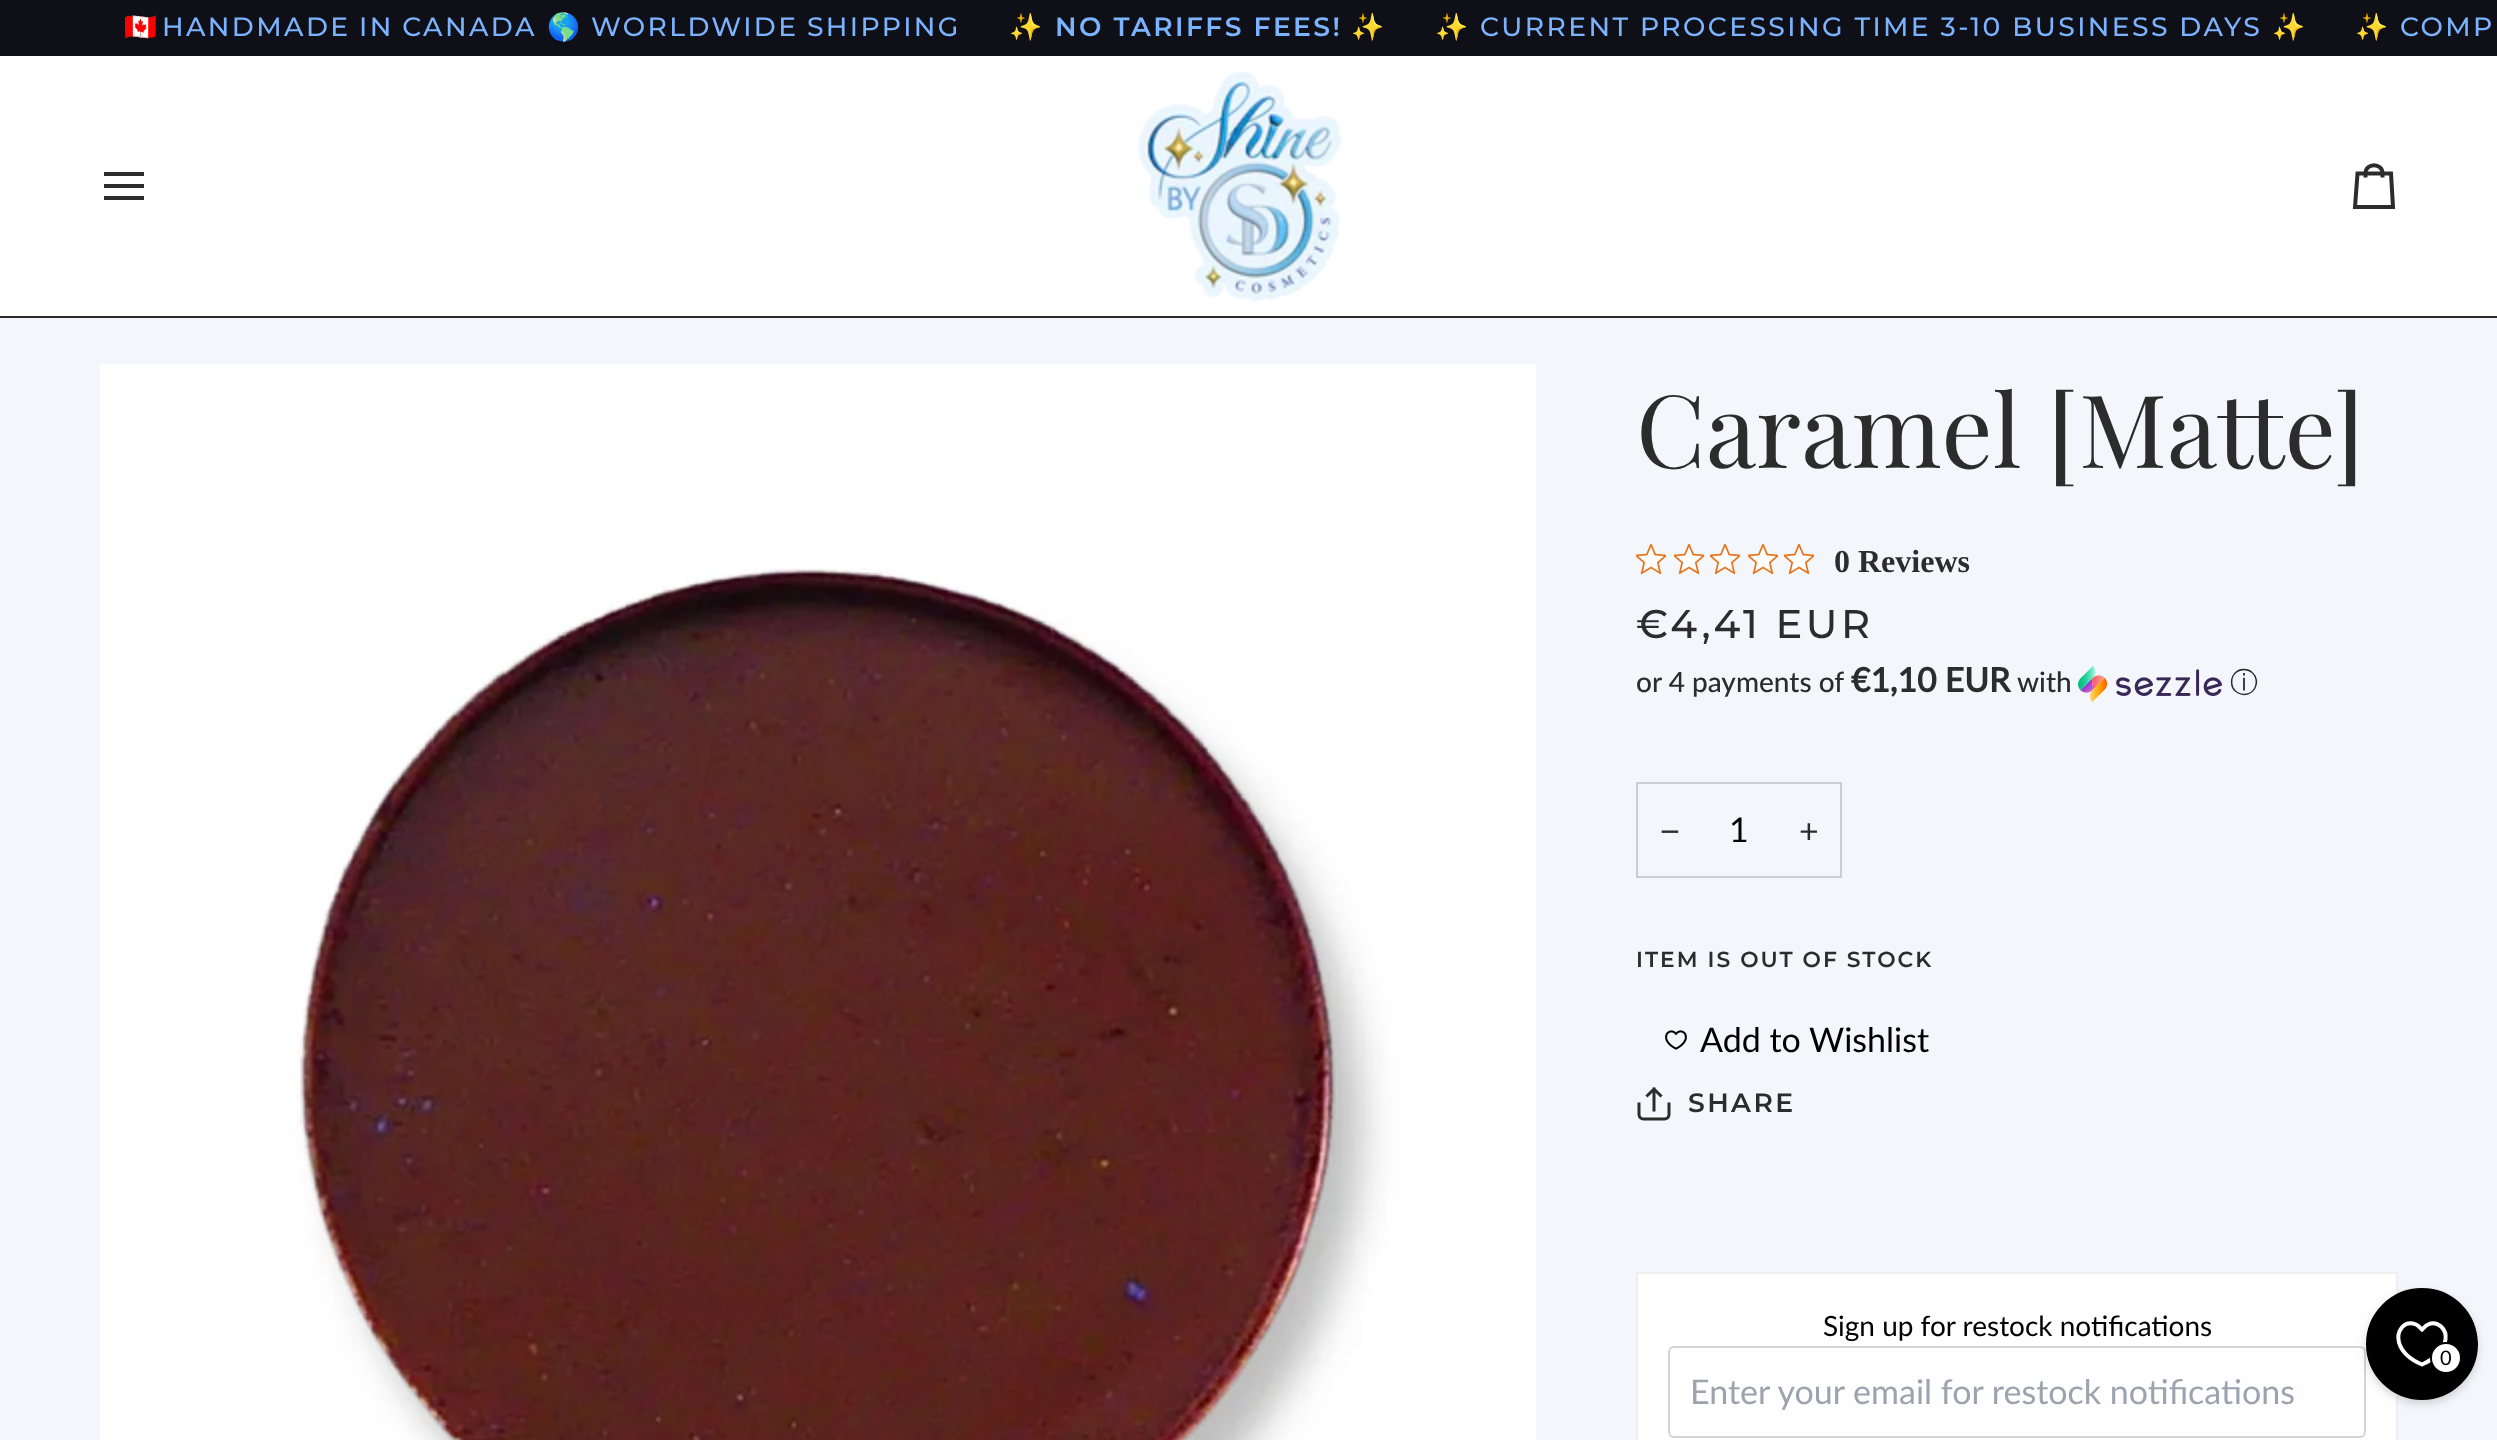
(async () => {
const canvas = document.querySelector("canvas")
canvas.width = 2497
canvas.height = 1440
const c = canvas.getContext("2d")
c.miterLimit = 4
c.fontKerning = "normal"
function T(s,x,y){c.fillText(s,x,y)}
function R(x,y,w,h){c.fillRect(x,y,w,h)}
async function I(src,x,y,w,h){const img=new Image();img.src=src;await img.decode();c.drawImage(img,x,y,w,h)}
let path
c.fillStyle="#fff"
R(0,0,2497,1440)
c.fillStyle="#0f0f17"
R(0,0,2497,56)
c.letterSpacing="2.4px"
c.font="26.6px Noto Color Emoji"
c.fillStyle="#7bb3ff"
T("🇨🇦",124,36)
c.wordSpacing="-1px"
c.font="500 26.6px Montserrat"
T("HANDMADE IN CANADA",162,36)
c.wordSpacing="0px"
c.font="26.6px Noto Color Emoji"
T("🌎",547,36)
c.wordSpacing="-1px"
c.font="500 26.6px Montserrat"
T("WORLDWIDE SHIPPING",591,36)
c.wordSpacing="0px"
c.font="26.6px Noto Color Emoji"
T("✨",1009,36)
c.font="600 26.6px Montserrat"
T("NO TARIFFS FEES!",1055,36)
c.font="26.6px Noto Color Emoji"
T("✨",1351,36)
T("✨",1435,36)
c.font="500 26.6px Montserrat"
T("CURRENT PROCESSING TIME 3-10 BUSINESS DAYS",1480,36)
c.font="26.6px Noto Color Emoji"
T("✨",2272,36)
T("✨",2355,36)
c.font="500 26.6px Montserrat"
T("COMP",2400,36)
c.fillStyle="#2c2c2c"
R(0,316,2497,2)
path = new Path2D("M142 174h-36m36 12h-36m36 12h-36")
c.strokeStyle="#2c2c2c"
c.lineWidth=4
c.lineCap="square"
c.stroke(path)
await I("1.png",1137,71,205,231)
path = new Path2D("M2382.5 177.5v-4h8.5l2 33.5h-38l2.5-33.5h8c0-11 17-11 17 0h-17v4")
c.lineCap="butt"
c.stroke(path)
c.fillStyle="#f3f6fa"
R(0,318,2497,1122)
await I("2.png",100,364,1436,1076)
c.letterSpacing="0px"
c.font="101.25px Playfair Display"
c.fillStyle="#2c2c2c"
T("Caramel [Matte]",1636,468)
await I("3.png",1636,544,30,30)
await I("3.png",1674,544,30,30)
await I("3.png",1710,544,30,30)
await I("3.png",1748,544,30,30)
await I("3.png",1784,544,30,30)
c.font="bold 32px Liberation Serif"
T("0 Reviews",1834,572)
c.letterSpacing="3.5px"
c.font="500 40px Montserrat"
T("€4,41 EUR",1636,638)
c.letterSpacing="0px"
c.font="500 28px Lato"
T("or 4 payments of",1636,692)
c.font="bold 33.5px Lato"
T("€1,10 EUR",1851,692)
c.font="500 28px Lato"
T("with",2017,692)
await I("4.png",2078,666,144,36)
c.font="500 28px WenQuanYi Zen Hei"
T("ⓘ",2230,692)
c.strokeStyle="#cbced1"
c.lineWidth=2
c.strokeRect(1637,783,204,94)
c.font="34px Liberation Sans"
T("−",1660,843)
c.font="34px Lato"
c.fillStyle="#060505"
T("1",1729,842)
c.fillStyle="#2c2c2c"
T("+",1799,843)
c.letterSpacing="2px"
c.font="600 21.8px Montserrat"
T("ITEM IS OUT OF STOCK",1636,967)
await I("5.png",1665,1030,22,20)
c.letterSpacing="0px"
c.font="34px Lato"
c.fillStyle="#000"
T("Add to Wishlist",1700,1052)
path = new Path2D("M1669 1104v10.5c0 2.5-2 4.5-4.5 4.5h-21c-2.5 0-4.5-2-4.5-4.5v-10.5m15-15v21m6.5-14.5l-6.5-6.5l-6.5 6.5")
c.strokeStyle="#2c2c2c"
c.lineWidth=3
c.lineCap="square"
c.stroke(path)
c.letterSpacing="2.4px"
c.font="600 26.6px Montserrat"
c.fillStyle="#2c2c2c"
T("SHARE",1688,1112)
c.fillStyle="#fefefe"
c.beginPath()
c.rect(1637,1273,760,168)
c.fill()
c.strokeStyle="#eee"
c.lineWidth=2
c.stroke()
c.letterSpacing="0px"
c.font="28px Lato"
c.fillStyle="#000"
T("Sign up for restock notifications",1823,1336)
c.beginPath()
c.roundRect(1669,1347,696,90,5)
c.strokeStyle="#d4d4d4"
c.stroke()
c.font="34px Lato"
c.fillStyle="#9ca3af"
T("Enter your email for restock notifications",1690,1404)
c.fillStyle="#00000026"
c.filter="blur(4px)"
c.beginPath()
c.roundRect(2366,1292,112,112,56)
c.fill()
c.filter="none"
c.fillStyle="#000"
c.beginPath()
c.arc(2422,1344,54,0,7)
c.fill()
c.strokeStyle="#000"
c.lineWidth=4
c.stroke()
path = new Path2D("M2422 1364.5c-9.5-4-20-11.5-23-22c-3-11 5-23 17-18c2.5 1 4 3 6 5c2-2 3.5-4 6-5c10-4.5 19 5 17.5 15c-1.5 12-13 20.5-23.5 25z")
c.strokeStyle="#fff"
c.lineCap="butt"
c.stroke(path)
c.fillStyle="#fff"
c.beginPath()
c.arc(2446,1358,15,0,7)
c.fill()
c.strokeStyle="#000"
c.lineWidth=2
c.stroke()
c.font="20px Lato"
c.fillStyle="#000"
T("0",2440,1365)
})()
